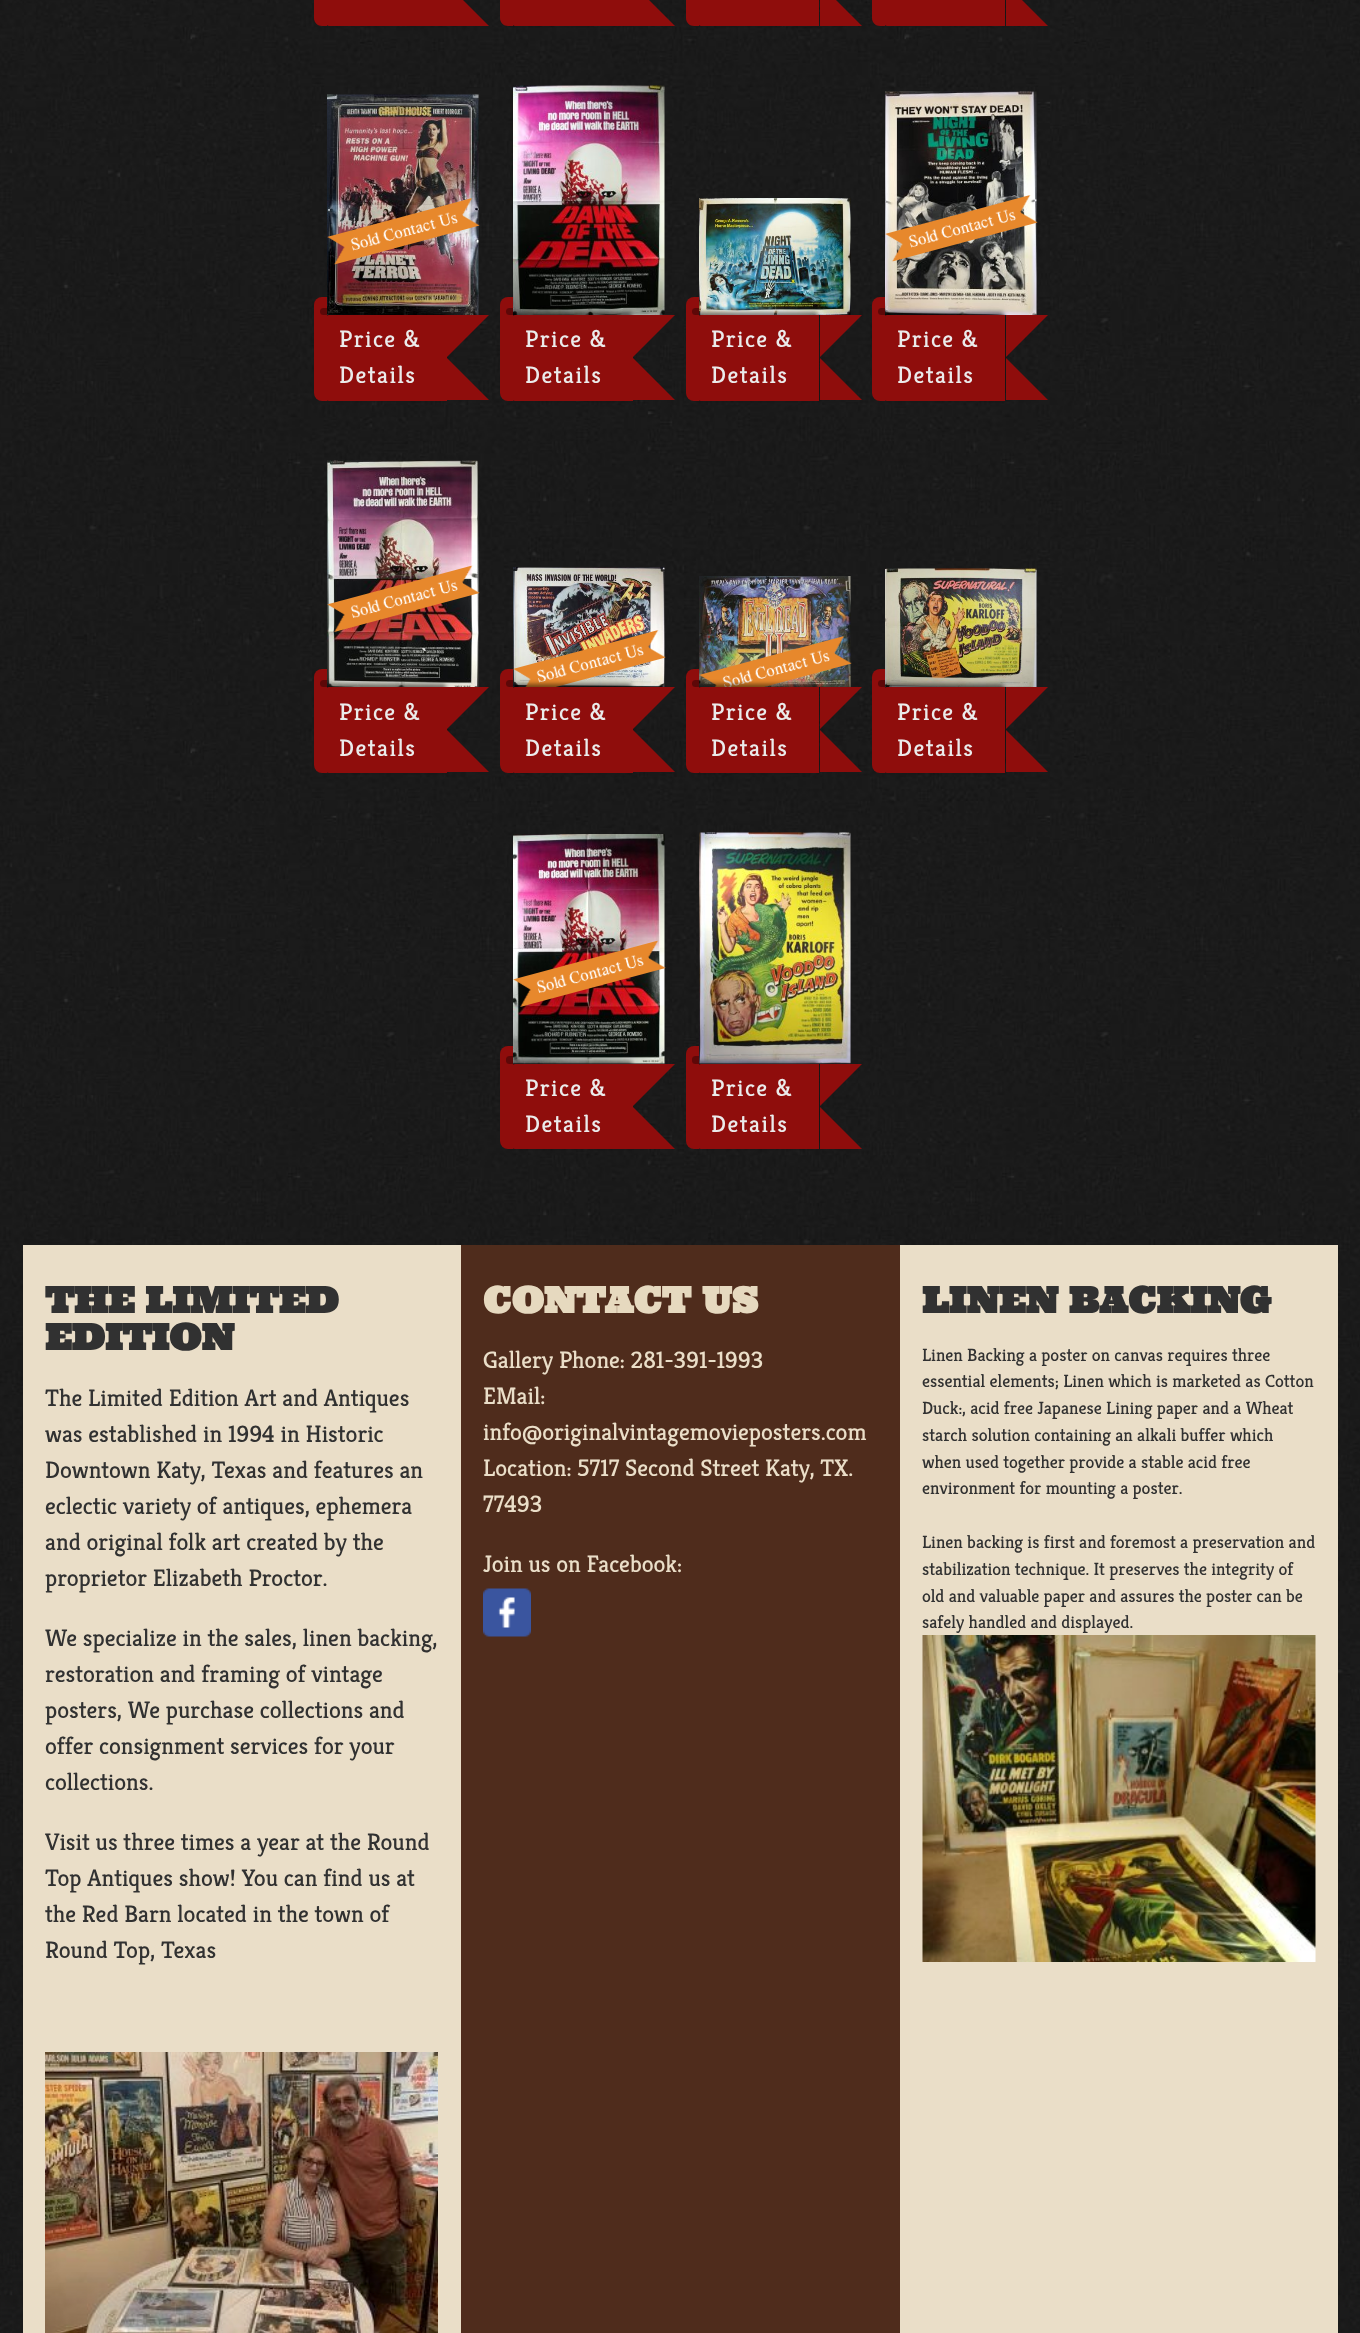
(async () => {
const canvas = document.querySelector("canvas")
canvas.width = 1360
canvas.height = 2333
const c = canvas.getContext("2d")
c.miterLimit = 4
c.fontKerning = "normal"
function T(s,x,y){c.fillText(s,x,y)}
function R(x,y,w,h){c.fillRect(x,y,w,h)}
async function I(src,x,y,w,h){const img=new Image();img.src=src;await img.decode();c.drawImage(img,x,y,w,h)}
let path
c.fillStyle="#fff"
R(0,0,1360,2333)
await I("1.png",0,0,1360,2333)
c.fillStyle="#00000080"
c.filter="blur(2px)"
c.beginPath()
c.roundRect(324,-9,122,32,3)
c.fill()
c.filter="none"
c.fillStyle="#8f0d0c"
path = new Path2D("M329-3h118v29h-118c-1.5 0-3-1.5-3-3v-23c0-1.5 1.5-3 3-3z")
c.fill(path)
path = new Path2D("M322-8h5v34h-5c-4.5 0-8-3.5-8-8v-18c0-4.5 3.5-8 8-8z")
c.fill(path)
path = new Path2D("M447 26v-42l42 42z")
c.fill(path)
c.fillStyle="#00000080"
c.filter="blur(2px)"
c.beginPath()
c.roundRect(510,-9,122,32,3)
c.fill()
c.filter="none"
c.fillStyle="#8f0d0c"
path = new Path2D("M515-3h118v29h-118c-1.5 0-3-1.5-3-3v-23c0-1.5 1.5-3 3-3z")
c.fill(path)
path = new Path2D("M508-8h5v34h-5c-4.5 0-8-3.5-8-8v-18c0-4.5 3.5-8 8-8z")
c.fill(path)
path = new Path2D("M633 26v-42l42 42z")
c.fill(path)
c.fillStyle="#00000080"
c.filter="blur(2px)"
c.beginPath()
c.roundRect(696,-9,122,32,3)
c.fill()
c.filter="none"
c.fillStyle="#8f0d0c"
path = new Path2D("M701-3h118v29h-118c-1.5 0-3-1.5-3-3v-23c0-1.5 1.5-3 3-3z")
c.fill(path)
path = new Path2D("M694-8h5v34h-5c-4.5 0-8-3.5-8-8v-18c0-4.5 3.5-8 8-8z")
c.fill(path)
path = new Path2D("M820 26v-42l42 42z")
c.fill(path)
c.fillStyle="#00000080"
c.filter="blur(2px)"
c.beginPath()
c.roundRect(882,-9,122,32,3)
c.fill()
c.filter="none"
c.fillStyle="#8f0d0c"
path = new Path2D("M887-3h118v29h-118c-1.5 0-3-1.5-3-3v-23c0-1.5 1.5-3 3-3z")
c.fill(path)
path = new Path2D("M880-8h5v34h-5c-4.5 0-8-3.5-8-8v-18c0-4.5 3.5-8 8-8z")
c.fill(path)
path = new Path2D("M1006 26v-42l42 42z")
c.fill(path)
await I("2.png",327,94,152,221)
await I("3.png",327,198,153,67)
c.fillStyle="#00000080"
c.filter="blur(2px)"
c.beginPath()
c.roundRect(324,312,122,86,3)
c.fill()
c.filter="none"
c.fillStyle="#8f0d0c"
c.beginPath()
c.roundRect(326,315,121,86,[3,0,0,3])
c.fill()
c.beginPath()
c.roundRect(314,297,13,104,[8,0,0,8])
c.fill()
c.fillStyle="#5d0808"
c.beginPath()
c.roundRect(320,308,7,7,[3.5,0,0,3.5])
c.fill()
c.letterSpacing="1.5px"
c.font="24px Kreon"
c.fillStyle="#ebebeb"
T("Price &",339,347)
c.fillStyle="#8f0d0c"
path = new Path2D("M447 315h42l-42 42z")
c.fill(path)
c.fillStyle="#ebebeb"
T("Details",339,383)
c.fillStyle="#8f0d0c"
path = new Path2D("M447 400v-42l42 42z")
c.fill(path)
await I("4.png",513,85,152,230)
c.fillStyle="#00000080"
c.filter="blur(2px)"
c.beginPath()
c.roundRect(510,312,122,86,3)
c.fill()
c.filter="none"
c.fillStyle="#8f0d0c"
c.beginPath()
c.roundRect(512,315,121,86,[3,0,0,3])
c.fill()
c.beginPath()
c.roundRect(500,297,13,104,[8,0,0,8])
c.fill()
c.fillStyle="#5d0808"
c.beginPath()
c.roundRect(506,308,7,7,[3.5,0,0,3.5])
c.fill()
c.fillStyle="#ebebeb"
T("Price &",525,347)
c.fillStyle="#8f0d0c"
path = new Path2D("M633 315h42l-42 42z")
c.fill(path)
c.fillStyle="#ebebeb"
T("Details",525,383)
c.fillStyle="#8f0d0c"
path = new Path2D("M633 400v-42l42 42z")
c.fill(path)
await I("5.png",699,198,152,117)
c.fillStyle="#00000080"
c.filter="blur(2px)"
c.beginPath()
c.roundRect(696,312,122,86,3)
c.fill()
c.filter="none"
c.fillStyle="#8f0d0c"
c.beginPath()
c.roundRect(698,315,121,86,[3,0,0,3])
c.fill()
c.beginPath()
c.roundRect(686,297,13,104,[8,0,0,8])
c.fill()
c.fillStyle="#5d0808"
c.beginPath()
c.roundRect(692,308,7,7,[3.5,0,0,3.5])
c.fill()
c.fillStyle="#ebebeb"
T("Price &",711,347)
c.fillStyle="#8f0d0c"
path = new Path2D("M820 315h42l-42 42z")
c.fill(path)
c.fillStyle="#ebebeb"
T("Details",711,383)
c.fillStyle="#8f0d0c"
path = new Path2D("M820 400v-42l42 42z")
c.fill(path)
await I("6.png",885,91,152,224)
await I("7.png",885,195,153,67)
c.fillStyle="#00000080"
c.filter="blur(2px)"
c.beginPath()
c.roundRect(882,312,122,86,3)
c.fill()
c.filter="none"
c.fillStyle="#8f0d0c"
c.beginPath()
c.roundRect(884,315,121,86,[3,0,0,3])
c.fill()
c.beginPath()
c.roundRect(872,297,13,104,[8,0,0,8])
c.fill()
c.fillStyle="#5d0808"
c.beginPath()
c.roundRect(878,308,7,7,[3.5,0,0,3.5])
c.fill()
c.fillStyle="#ebebeb"
T("Price &",897,347)
c.fillStyle="#8f0d0c"
path = new Path2D("M1006 315h42l-42 42z")
c.fill(path)
c.fillStyle="#ebebeb"
T("Details",897,383)
c.fillStyle="#8f0d0c"
path = new Path2D("M1006 400v-42l42 42z")
c.fill(path)
await I("8.png",327,460,152,227)
await I("9.png",327,565,153,67)
c.fillStyle="#00000080"
c.filter="blur(2px)"
c.beginPath()
c.roundRect(324,684,122,86,3)
c.fill()
c.filter="none"
c.fillStyle="#8f0d0c"
c.beginPath()
c.roundRect(326,687,121,86,[3,0,0,3])
c.fill()
c.beginPath()
c.roundRect(314,669,13,104,[8,0,0,8])
c.fill()
c.fillStyle="#5d0808"
c.beginPath()
c.roundRect(320,680,7,7,[3.5,0,0,3.5])
c.fill()
c.fillStyle="#ebebeb"
T("Price &",339,720)
c.fillStyle="#8f0d0c"
path = new Path2D("M447 687h42l-42 42z")
c.fill(path)
c.fillStyle="#ebebeb"
T("Details",339,756)
c.fillStyle="#8f0d0c"
path = new Path2D("M447 772v-42l42 42z")
c.fill(path)
await I("10.png",513,567,152,120)
await I("11.png",513,630,153,57)
c.fillStyle="#00000080"
c.filter="blur(2px)"
c.beginPath()
c.roundRect(510,684,122,86,3)
c.fill()
c.filter="none"
c.fillStyle="#8f0d0c"
c.beginPath()
c.roundRect(512,687,121,86,[3,0,0,3])
c.fill()
c.beginPath()
c.roundRect(500,669,13,104,[8,0,0,8])
c.fill()
c.fillStyle="#5d0808"
c.beginPath()
c.roundRect(506,680,7,7,[3.5,0,0,3.5])
c.fill()
c.fillStyle="#ebebeb"
T("Price &",525,720)
c.fillStyle="#8f0d0c"
path = new Path2D("M633 687h42l-42 42z")
c.fill(path)
c.fillStyle="#ebebeb"
T("Details",525,756)
c.fillStyle="#8f0d0c"
path = new Path2D("M633 772v-42l42 42z")
c.fill(path)
await I("12.png",699,576,152,111)
await I("13.png",699,636,153,51)
c.fillStyle="#00000080"
c.filter="blur(2px)"
c.beginPath()
c.roundRect(696,684,122,86,3)
c.fill()
c.filter="none"
c.fillStyle="#8f0d0c"
c.beginPath()
c.roundRect(698,687,121,86,[3,0,0,3])
c.fill()
c.beginPath()
c.roundRect(686,669,13,104,[8,0,0,8])
c.fill()
c.fillStyle="#5d0808"
c.beginPath()
c.roundRect(692,680,7,7,[3.5,0,0,3.5])
c.fill()
c.fillStyle="#ebebeb"
T("Price &",711,720)
c.fillStyle="#8f0d0c"
path = new Path2D("M820 687h42l-42 42z")
c.fill(path)
c.fillStyle="#ebebeb"
T("Details",711,756)
c.fillStyle="#8f0d0c"
path = new Path2D("M820 772v-42l42 42z")
c.fill(path)
await I("14.png",885,568,152,119)
c.fillStyle="#00000080"
c.filter="blur(2px)"
c.beginPath()
c.roundRect(882,684,122,86,3)
c.fill()
c.filter="none"
c.fillStyle="#8f0d0c"
c.beginPath()
c.roundRect(884,687,121,86,[3,0,0,3])
c.fill()
c.beginPath()
c.roundRect(872,669,13,104,[8,0,0,8])
c.fill()
c.fillStyle="#5d0808"
c.beginPath()
c.roundRect(878,680,7,7,[3.5,0,0,3.5])
c.fill()
c.fillStyle="#ebebeb"
T("Price &",897,720)
c.fillStyle="#8f0d0c"
path = new Path2D("M1006 687h42l-42 42z")
c.fill(path)
c.fillStyle="#ebebeb"
T("Details",897,756)
c.fillStyle="#8f0d0c"
path = new Path2D("M1006 772v-42l42 42z")
c.fill(path)
await I("15.png",513,834,152,230)
await I("16.png",513,940,153,67)
c.fillStyle="#00000080"
c.filter="blur(2px)"
c.beginPath()
c.roundRect(510,1061,122,85,3)
c.fill()
c.filter="none"
c.fillStyle="#8f0d0c"
c.beginPath()
c.roundRect(512,1064,121,85,[3,0,0,3])
c.fill()
c.beginPath()
c.roundRect(500,1046,13,103,[8,0,0,8])
c.fill()
c.fillStyle="#5d0808"
c.beginPath()
c.roundRect(506,1056,7,8,[3.5,0,0,3.5])
c.fill()
c.fillStyle="#ebebeb"
T("Price &",525,1096)
c.fillStyle="#8f0d0c"
path = new Path2D("M633 1064h42l-42 42z")
c.fill(path)
c.fillStyle="#ebebeb"
T("Details",525,1132)
c.fillStyle="#8f0d0c"
path = new Path2D("M633 1149v-42l42 42z")
c.fill(path)
await I("17.png",699,832,152,232)
c.fillStyle="#00000080"
c.filter="blur(2px)"
c.beginPath()
c.roundRect(696,1061,122,85,3)
c.fill()
c.filter="none"
c.fillStyle="#8f0d0c"
c.beginPath()
c.roundRect(698,1064,121,85,[3,0,0,3])
c.fill()
c.beginPath()
c.roundRect(686,1046,13,103,[8,0,0,8])
c.fill()
c.fillStyle="#5d0808"
c.beginPath()
c.roundRect(692,1056,7,8,[3.5,0,0,3.5])
c.fill()
c.fillStyle="#ebebeb"
T("Price &",711,1096)
c.fillStyle="#8f0d0c"
path = new Path2D("M820 1064h42l-42 42z")
c.fill(path)
c.fillStyle="#ebebeb"
T("Details",711,1132)
c.fillStyle="#8f0d0c"
path = new Path2D("M820 1149v-42l42 42z")
c.fill(path)
c.fillStyle="#eadec8"
R(23,1245,438,1088)
c.letterSpacing="0px"
c.font="bold 36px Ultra"
c.fillStyle="#313131"
T("THE LIMITED",45,1313)
T("EDITION",45,1350)
c.font="24px Kreon"
T("The Limited Edition Art and Antiques",45,1406)
T("was established in 1994 in Historic",45,1442)
T("Downtown Katy, Texas and features an",45,1478)
T("eclectic variety of antiques, ephemera",45,1514)
T("and original folk art created by the",45,1550)
T("proprietor Elizabeth Proctor.",45,1586)
T("We specialize in the sales, linen backing,",45,1646)
T("restoration and framing of vintage",45,1682)
T("posters, We purchase collections and",45,1718)
T("offer consignment services for your",45,1754)
T("collections.",45,1790)
T("Visit us three times a year at the Round",45,1850)
T("Top Antiques show! You can find us at",45,1886)
T("the Red Barn located in the town of",45,1922)
T("Round Top, Texas",45,1958)
await I("18.png",45,2052,393,281)
c.fillStyle="#4f2c1c"
R(461,1245,439,1088)
c.font="bold 36px Ultra"
c.fillStyle="#e6d9bf"
T("CONTACT US",483,1313)
c.font="24px Kreon"
c.fillStyle="#eadec8"
T("Gallery Phone: 281-391-1993",483,1368)
T("EMail:",483,1404)
T("info@originalvintagemovieposters.com",483,1440)
T("Location: 5717 Second Street Katy, TX.",483,1476)
T("77493",483,1512)
T("Join us on Facebook:",483,1572)
await I("19.png",483,1588,48,49)
R(900,1245,438,1088)
c.font="bold 36px Ultra"
c.fillStyle="#313131"
T("LINEN BACKING",922,1313)
c.font="17.85px Kreon"
T("Linen Backing a poster on canvas requires three",922,1361)
T("essential elements; Linen which is marketed as Cotton",922,1387)
T("Duck:, acid free Japanese Lining paper and a Wheat",922,1414)
T("starch solution containing an alkali buffer which",922,1441)
T("when used together provide a stable acid free",922,1468)
T("environment for mounting a poster.",922,1494)
T("Linen backing is first and foremost a preservation and",922,1548)
T("stabilization technique. It preserves the integrity of",922,1575)
T("old and valuable paper and assures the poster can be",922,1602)
T("safely handled and displayed.",922,1628)
await I("20.png",922,1635,394,327)
})()
